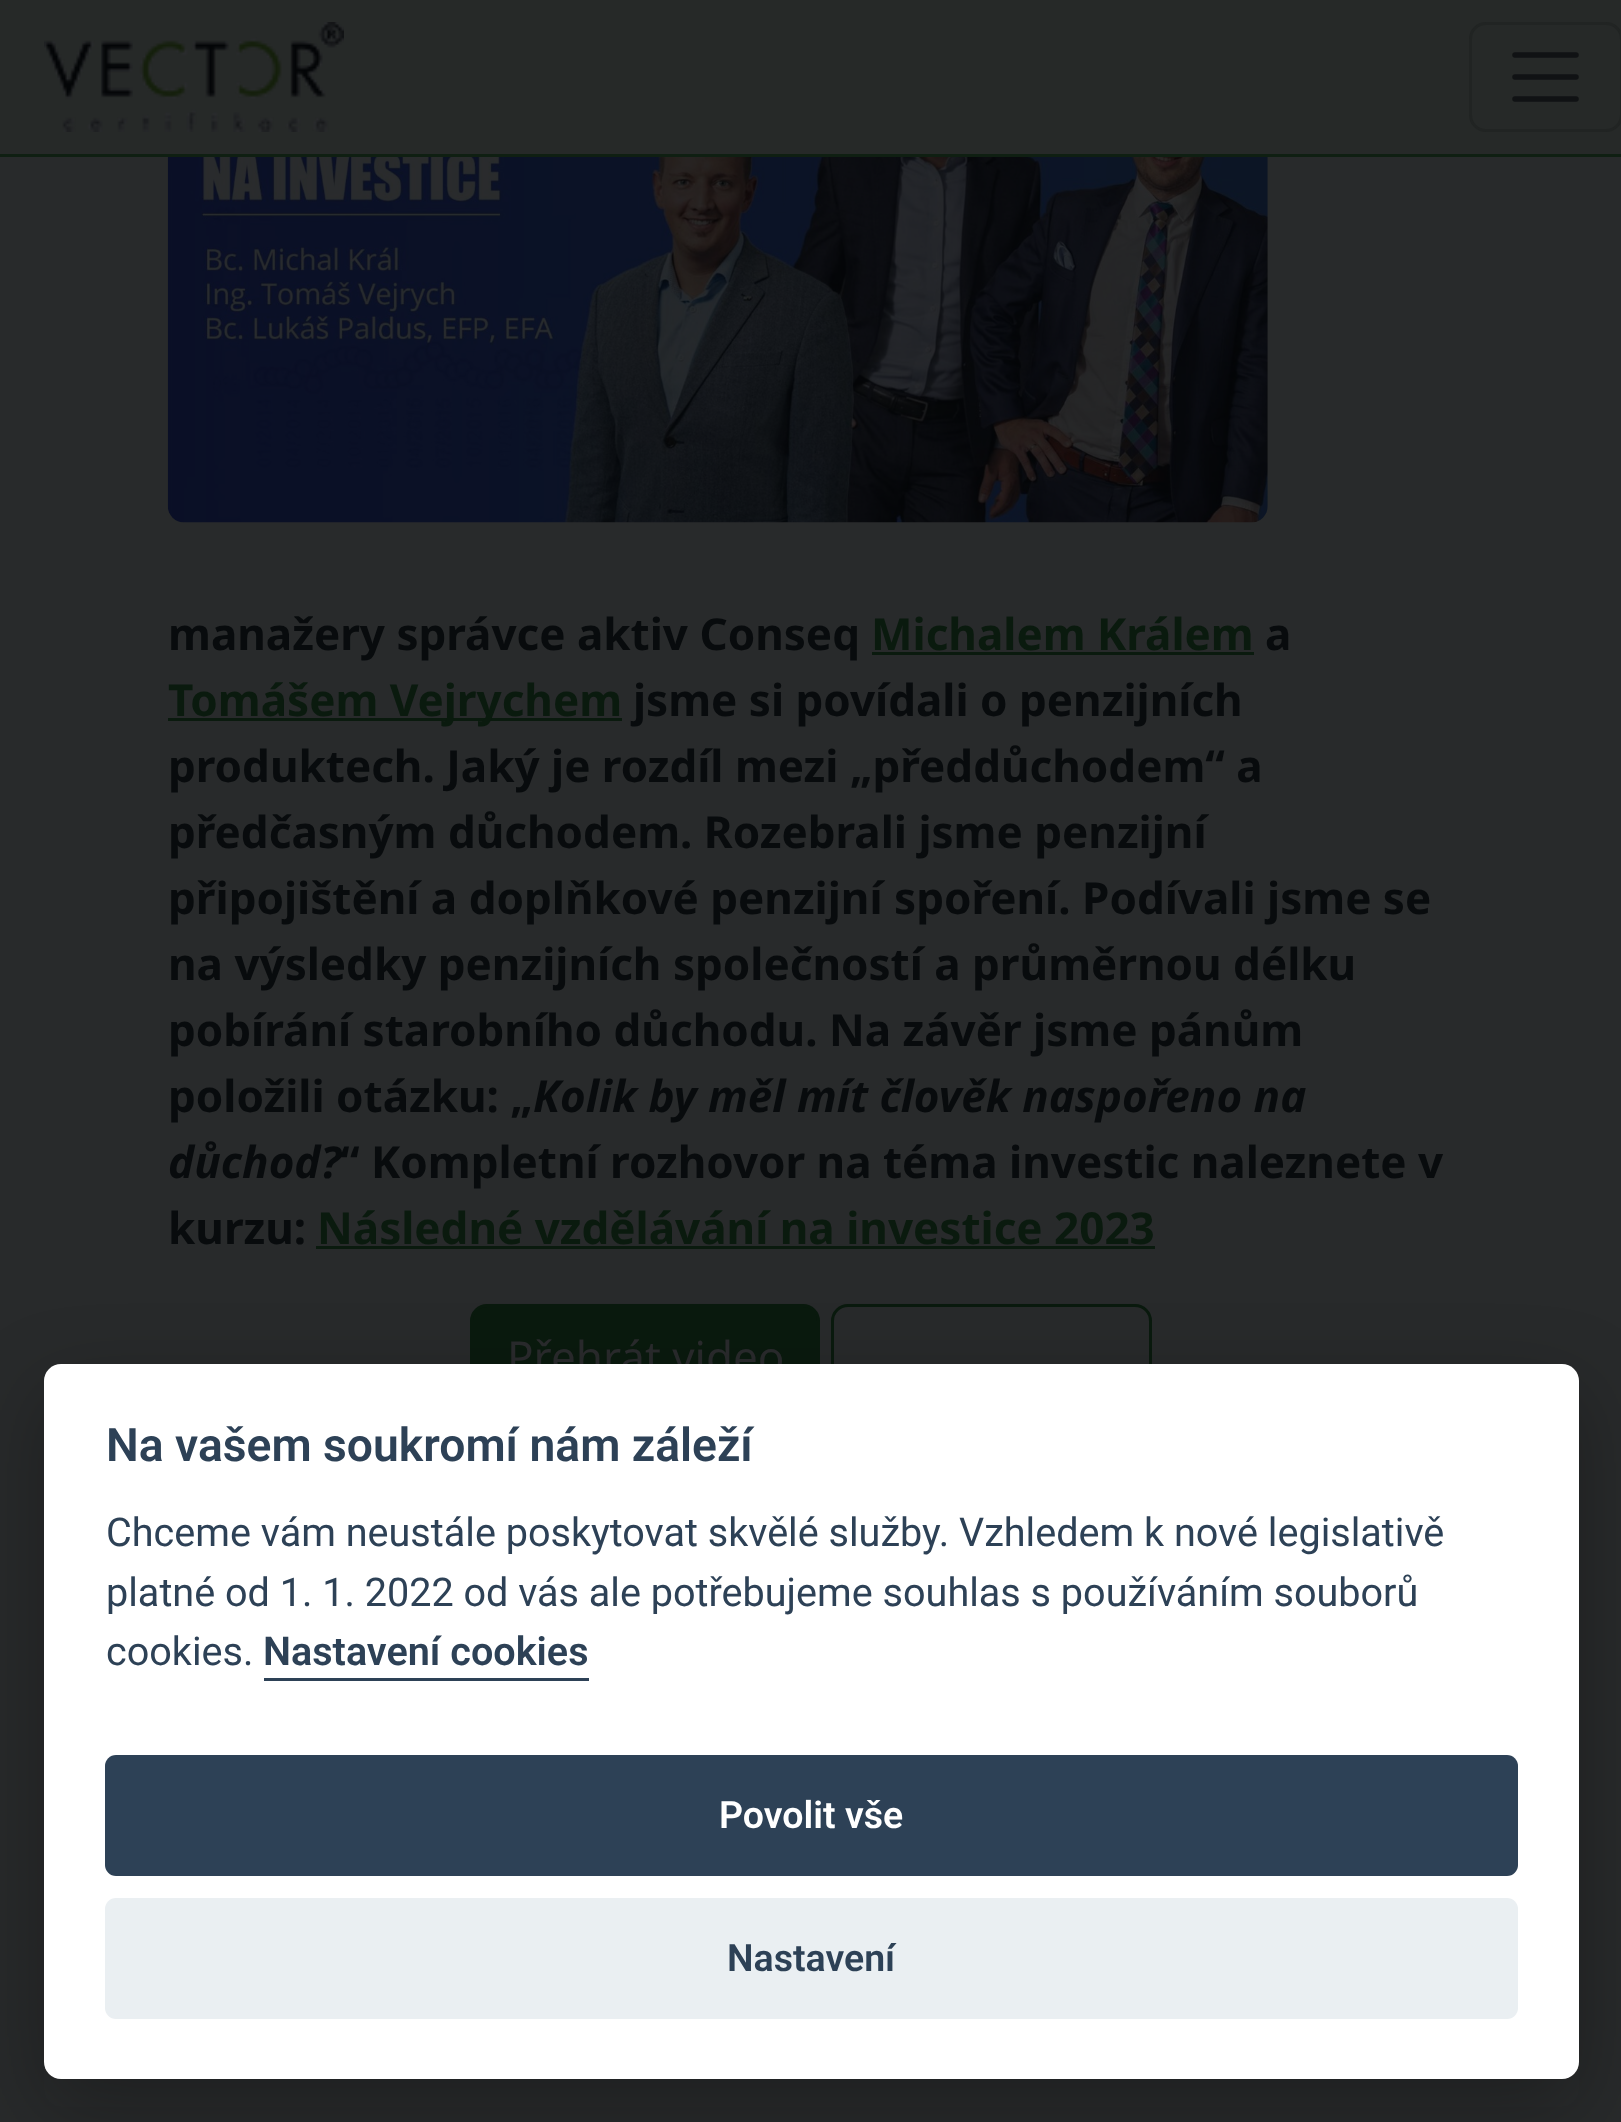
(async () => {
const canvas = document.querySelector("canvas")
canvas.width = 1621
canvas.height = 2122
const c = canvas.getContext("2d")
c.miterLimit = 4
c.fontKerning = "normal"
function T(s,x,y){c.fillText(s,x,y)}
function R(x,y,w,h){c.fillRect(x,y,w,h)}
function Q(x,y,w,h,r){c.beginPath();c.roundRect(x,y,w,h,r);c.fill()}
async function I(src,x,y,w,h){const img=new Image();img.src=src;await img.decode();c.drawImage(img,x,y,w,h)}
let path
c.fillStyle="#282a2b"
R(0,0,1621,2122)
c.fillStyle="#262928"
R(0,0,1621,154)
c.fillStyle="#0f1f12"
R(0,154,1621,3)
await I("1.png",44,22,300,110)
c.beginPath()
c.roundRect(1470.5,23.5,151,107,15.5)
c.strokeStyle="#212423"
c.lineWidth=3
c.stroke()
path = new Path2D("M1515 55h61m-61 22h61m-61 22h61")
c.strokeStyle="#101214"
c.lineWidth=5.5
c.lineCap="round"
c.stroke(path)
await I("2.png",167,157,1101,366)
c.font="bold 44px Noto Sans"
c.fillStyle="#080b0d"
T("manažery správce aktiv Conseq",168,650)
c.fillStyle="#0a1a0e"
T("Michalem Králem",871,650)
R(872,652,382,3)
c.fillStyle="#080b0d"
T("a",1265,650)
c.fillStyle="#0a1a0e"
R(168,718,454,3)
T("Tomášem Vejrychem",168,716)
c.fillStyle="#080b0d"
T("jsme si povídali o penzijních",633,716)
T("produktech. Jaký je rozdíl mezi „předdůchodem“ a",168,782)
T("předčasným důchodem. Rozebrali jsme penzijní",168,848)
T("připojištění a doplňkové penzijní spoření. Podívali jsme se",168,914)
T("na výsledky penzijních společností a průměrnou délku",168,980)
T("pobírání starobního důchodu. Na závěr jsme pánům",168,1046)
T("položili otázku: „",168,1112)
c.font="italic bold 44px Noto Sans"
T("Kolik by měl mít člověk naspořeno na",533,1112)
T("důchod?",168,1178)
c.font="bold 44px Noto Sans"
T("“ Kompletní rozhovor na téma investic naleznete v",340,1178)
T("kurzu:",168,1244)
c.fillStyle="#0a1a0e"
T("Následné vzdělávání na investice 2023",317,1244)
R(316,1246,839,3)
c.beginPath()
c.roundRect(471.5,1305.5,347,101,15.5)
c.fill()
c.strokeStyle="#0a1a0e"
c.lineWidth=3
c.stroke()
c.font="44px Noto Sans"
c.fillStyle="#2a2b2d"
T("Přehrát video",507,1373)
c.beginPath()
c.roundRect(832.5,1305.5,318,101,15.5)
c.stroke()
c.fillStyle="#02020347"
c.filter="blur(41px)"
c.beginPath()
c.roundRect(44,1392,1535,715,17)
c.fill()
c.filter="none"
c.fillStyle="#fff"
Q(44,1364,1535,715,17)
c.font="600 46.25px Roboto"
c.fillStyle="#2d4156"
T("Na vašem soukromí nám záleží",106,1461)
c.font="39.6px Roboto"
T("Chceme vám neustále poskytovat skvělé služby. Vzhledem k nové legislativě",106,1546)
T("platné od 1. 1. 2022 od vás ale potřebujeme souhlas s používáním souborů",106,1606)
T("cookies.",106,1665)
c.font="600 39.6px Roboto"
T("Nastavení cookies",263,1665)
R(264,1678,325,3)
Q(105,1755,1413,121,11)
c.font="600 37.5px Roboto"
c.fillStyle="#fff"
T("Povolit vše",719,1828)
c.fillStyle="#eaeff2"
Q(105,1898,1413,121,11)
c.fillStyle="#2d4156"
T("Nastavení",727,1971)
})()
